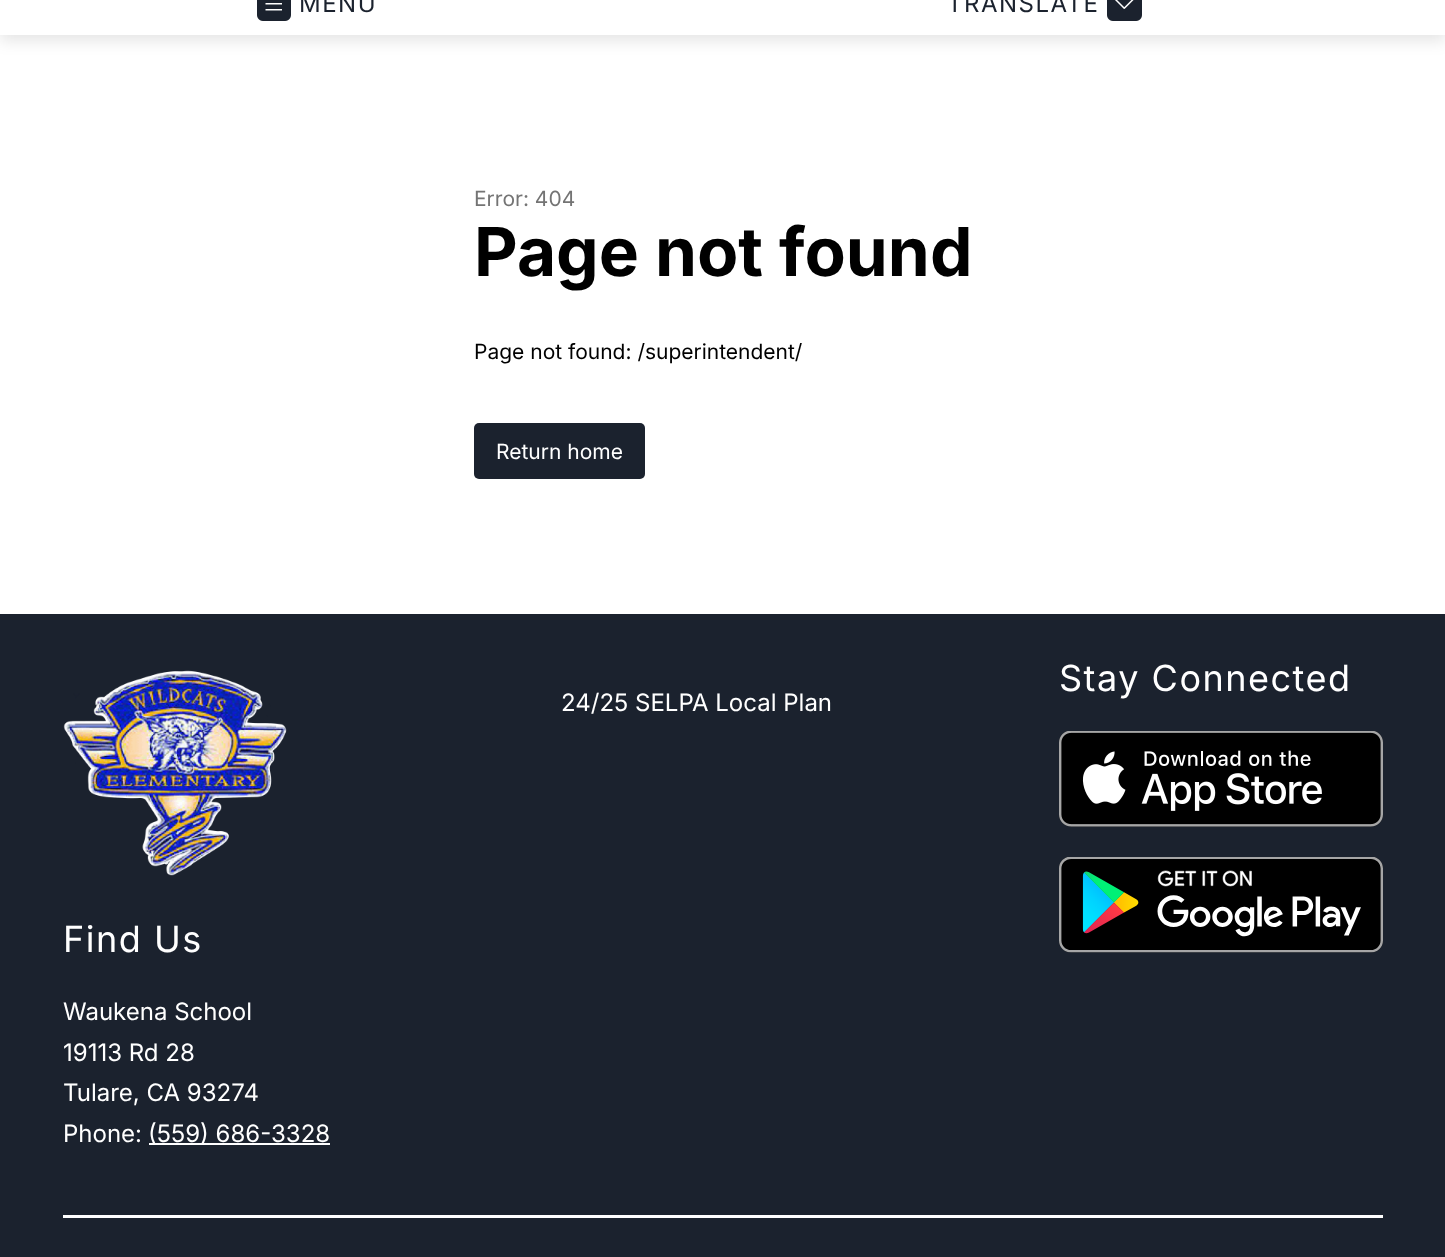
(async () => {
const canvas = document.querySelector("canvas")
canvas.width = 1445
canvas.height = 1257
const c = canvas.getContext("2d")
c.miterLimit = 4
c.fontKerning = "normal"
function T(s,x,y){c.fillText(s,x,y)}
function R(x,y,w,h){c.fillRect(x,y,w,h)}
function Q(x,y,w,h,r){c.beginPath();c.roundRect(x,y,w,h,r);c.fill()}
async function I(src,x,y,w,h){const img=new Image();img.src=src;await img.decode();c.drawImage(img,x,y,w,h)}
c.fillStyle="#fff"
R(0,0,1445,1257)
c.fillStyle="#0000001a"
c.filter="blur(7.5px)"
c.beginPath()
c.rect(0,-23,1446,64)
c.fill()
c.filter="none"
c.fillStyle="#fff"
R(0,0,1445,35)
await I("1.png",257,0,34,21)
c.letterSpacing="1.5px"
c.font="24px Inter"
c.fillStyle="#1b222e"
T("MENU",299,12)
T("TRANSLATE",947,12)
await I("2.png",1107,0,35,21)
c.letterSpacing="0px"
c.font="21px Inter"
c.fillStyle="#747474"
T("Error: 404",474,206)
c.font="bold 67.5px Inter"
c.fillStyle="#000"
T("Page not found",474,276)
c.font="21px Inter"
T("Page not found: /superintendent/",474,359)
c.fillStyle="#1b222e"
Q(474,423,171,56,5)
c.fillStyle="#fff"
T("Return home",496,459)
c.fillStyle="#1b222e"
R(0,614,1445,643)
c.letterSpacing="1.5px"
c.font="36px Inter"
c.fillStyle="#fff"
T("Stay Connected",1059,691)
await I("3.png",1059,731,324,96)
await I("4.png",1059,857,324,96)
c.letterSpacing="0px"
c.font="24px Inter"
T("24/25 SELPA Local Plan",561,711)
await I("5.png",63,670,224,206)
c.letterSpacing="1.5px"
c.font="36px Inter"
T("Find Us",63,952)
c.letterSpacing="0px"
c.font="24px Inter"
T("Waukena School",63,1020)
T("19113 Rd 28",63,1061)
T("Tulare, CA 93274",63,1101)
T("Phone:",63,1142)
R(149,1143,181,2)
T("(559) 686-3328",148,1142)
R(63,1215,1320,3)
})()
